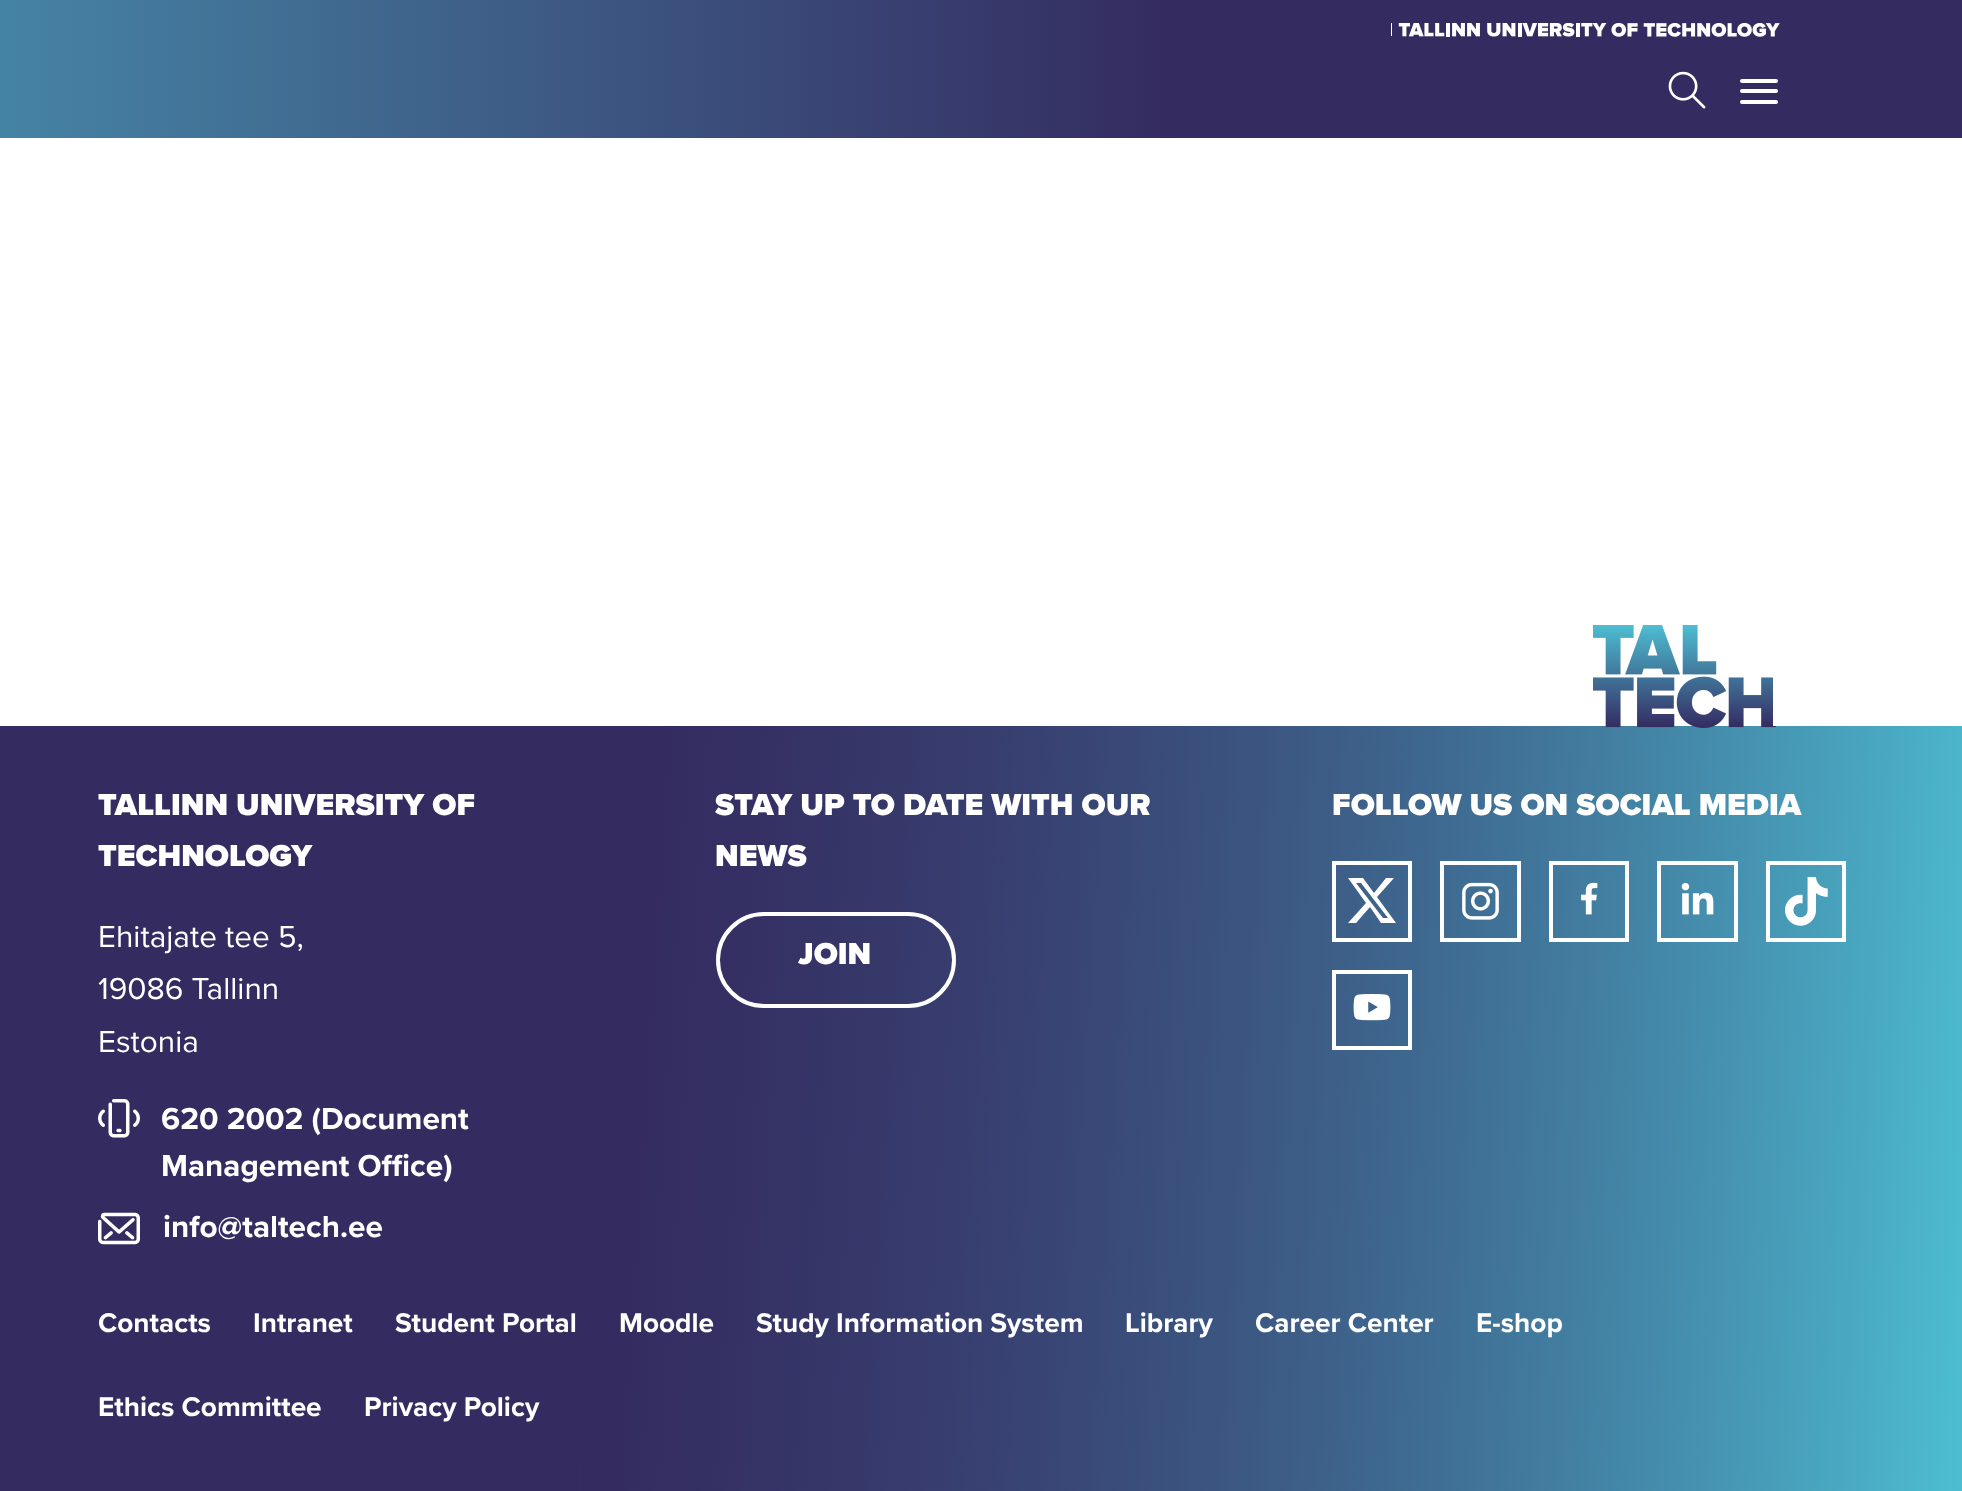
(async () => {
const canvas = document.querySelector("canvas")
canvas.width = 1962
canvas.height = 1491
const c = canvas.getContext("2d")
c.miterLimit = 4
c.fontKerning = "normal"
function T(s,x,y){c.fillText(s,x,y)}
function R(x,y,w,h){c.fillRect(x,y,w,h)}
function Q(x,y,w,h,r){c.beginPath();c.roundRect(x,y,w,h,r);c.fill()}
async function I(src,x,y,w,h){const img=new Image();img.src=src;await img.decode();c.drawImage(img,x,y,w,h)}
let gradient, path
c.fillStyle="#fff"
R(0,0,1962,1491)
gradient = c.createLinearGradient(0,69,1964,69)
gradient.addColorStop(0,"#4583a4")
gradient.addColorStop(.6,"#342b60")
c.fillStyle = gradient
R(0,0,1962,138)
await I("1.png",1391,23,389,14)
await I("2.png",1668,71,38,38)
c.fillStyle="#fff"
Q(1740,89,38,4,2)
Q(1740,79,38,4,2)
Q(1740,100,38,4,2)
gradient = c.createLinearGradient(-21,1042,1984,1175)
gradient.addColorStop(0,"#342b60")
gradient.addColorStop(1,"#4dbed2")
c.fillStyle = gradient
R(582,726,1380,765)
gradient = c.createLinearGradient(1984,1175,-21,1042)
gradient.addColorStop(0,"#342b6000")
gradient.addColorStop(.69,"#342b60")
c.fillStyle = gradient
R(0,726,1962,765)
await I("3.png",1593,625,183,103)
c.fillStyle="#fff"
R(1773,677,3,49)
c.font="31.5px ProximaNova"
T("TALLINN UNIVERSITY OF",98,815)
T("TECHNOLOGY",98,866)
c.font="31.5px 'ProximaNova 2'"
T("Ehitajate tee 5,",98,947)
T("19086 Tallinn",98,999)
T("Estonia",98,1052)
await I("4.png",98,1099,42,39)
c.font="31.5px 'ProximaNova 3'"
T("620 2002 (Document",161,1129)
T("Management Office)",161,1176)
await I("5.png",98,1212,42,33)
T("info@taltech.ee",163,1237)
c.font="31.5px ProximaNova"
T("STAY UP TO DATE WITH OUR",715,815)
T("NEWS",715,866)
c.beginPath()
c.roundRect(718,914,236,92,46)
c.strokeStyle="#fff"
c.lineWidth=4
c.stroke()
T("JOIN",798,964)
T("FOLLOW US ON SOCIAL MEDIA",1332,815)
c.strokeRect(1334,863,76,77)
path = new Path2D("M1386 878h8l-17 19l19 26h-15l-11-16l-14 16h-8l18-20l-18-25h15l11 15zm-3 40h5l-27-35h-5z")
c.fill(path)
c.strokeRect(1442,863,77,77)
await I("6.png",1462,882,37,38)
c.strokeRect(1551,863,76,77)
await I("7.png",1581,882,17,33)
c.strokeRect(1659,863,77,77)
await I("8.png",1681,882,33,33)
c.strokeRect(1768,863,76,77)
await I("9.png",1785,877,43,49)
c.strokeRect(1334,972,76,76)
await I("10.png",1353,994,38,27)
c.font="28px 'ProximaNova 3'"
T("Contacts",98,1332)
T("Intranet",253,1332)
T("Student Portal",395,1332)
T("Moodle",619,1332)
T("Study Information System",756,1332)
T("Library",1125,1332)
T("Career Center",1255,1332)
T("E-shop",1476,1332)
T("Ethics Committee",98,1416)
T("Privacy Policy",364,1416)
})()
